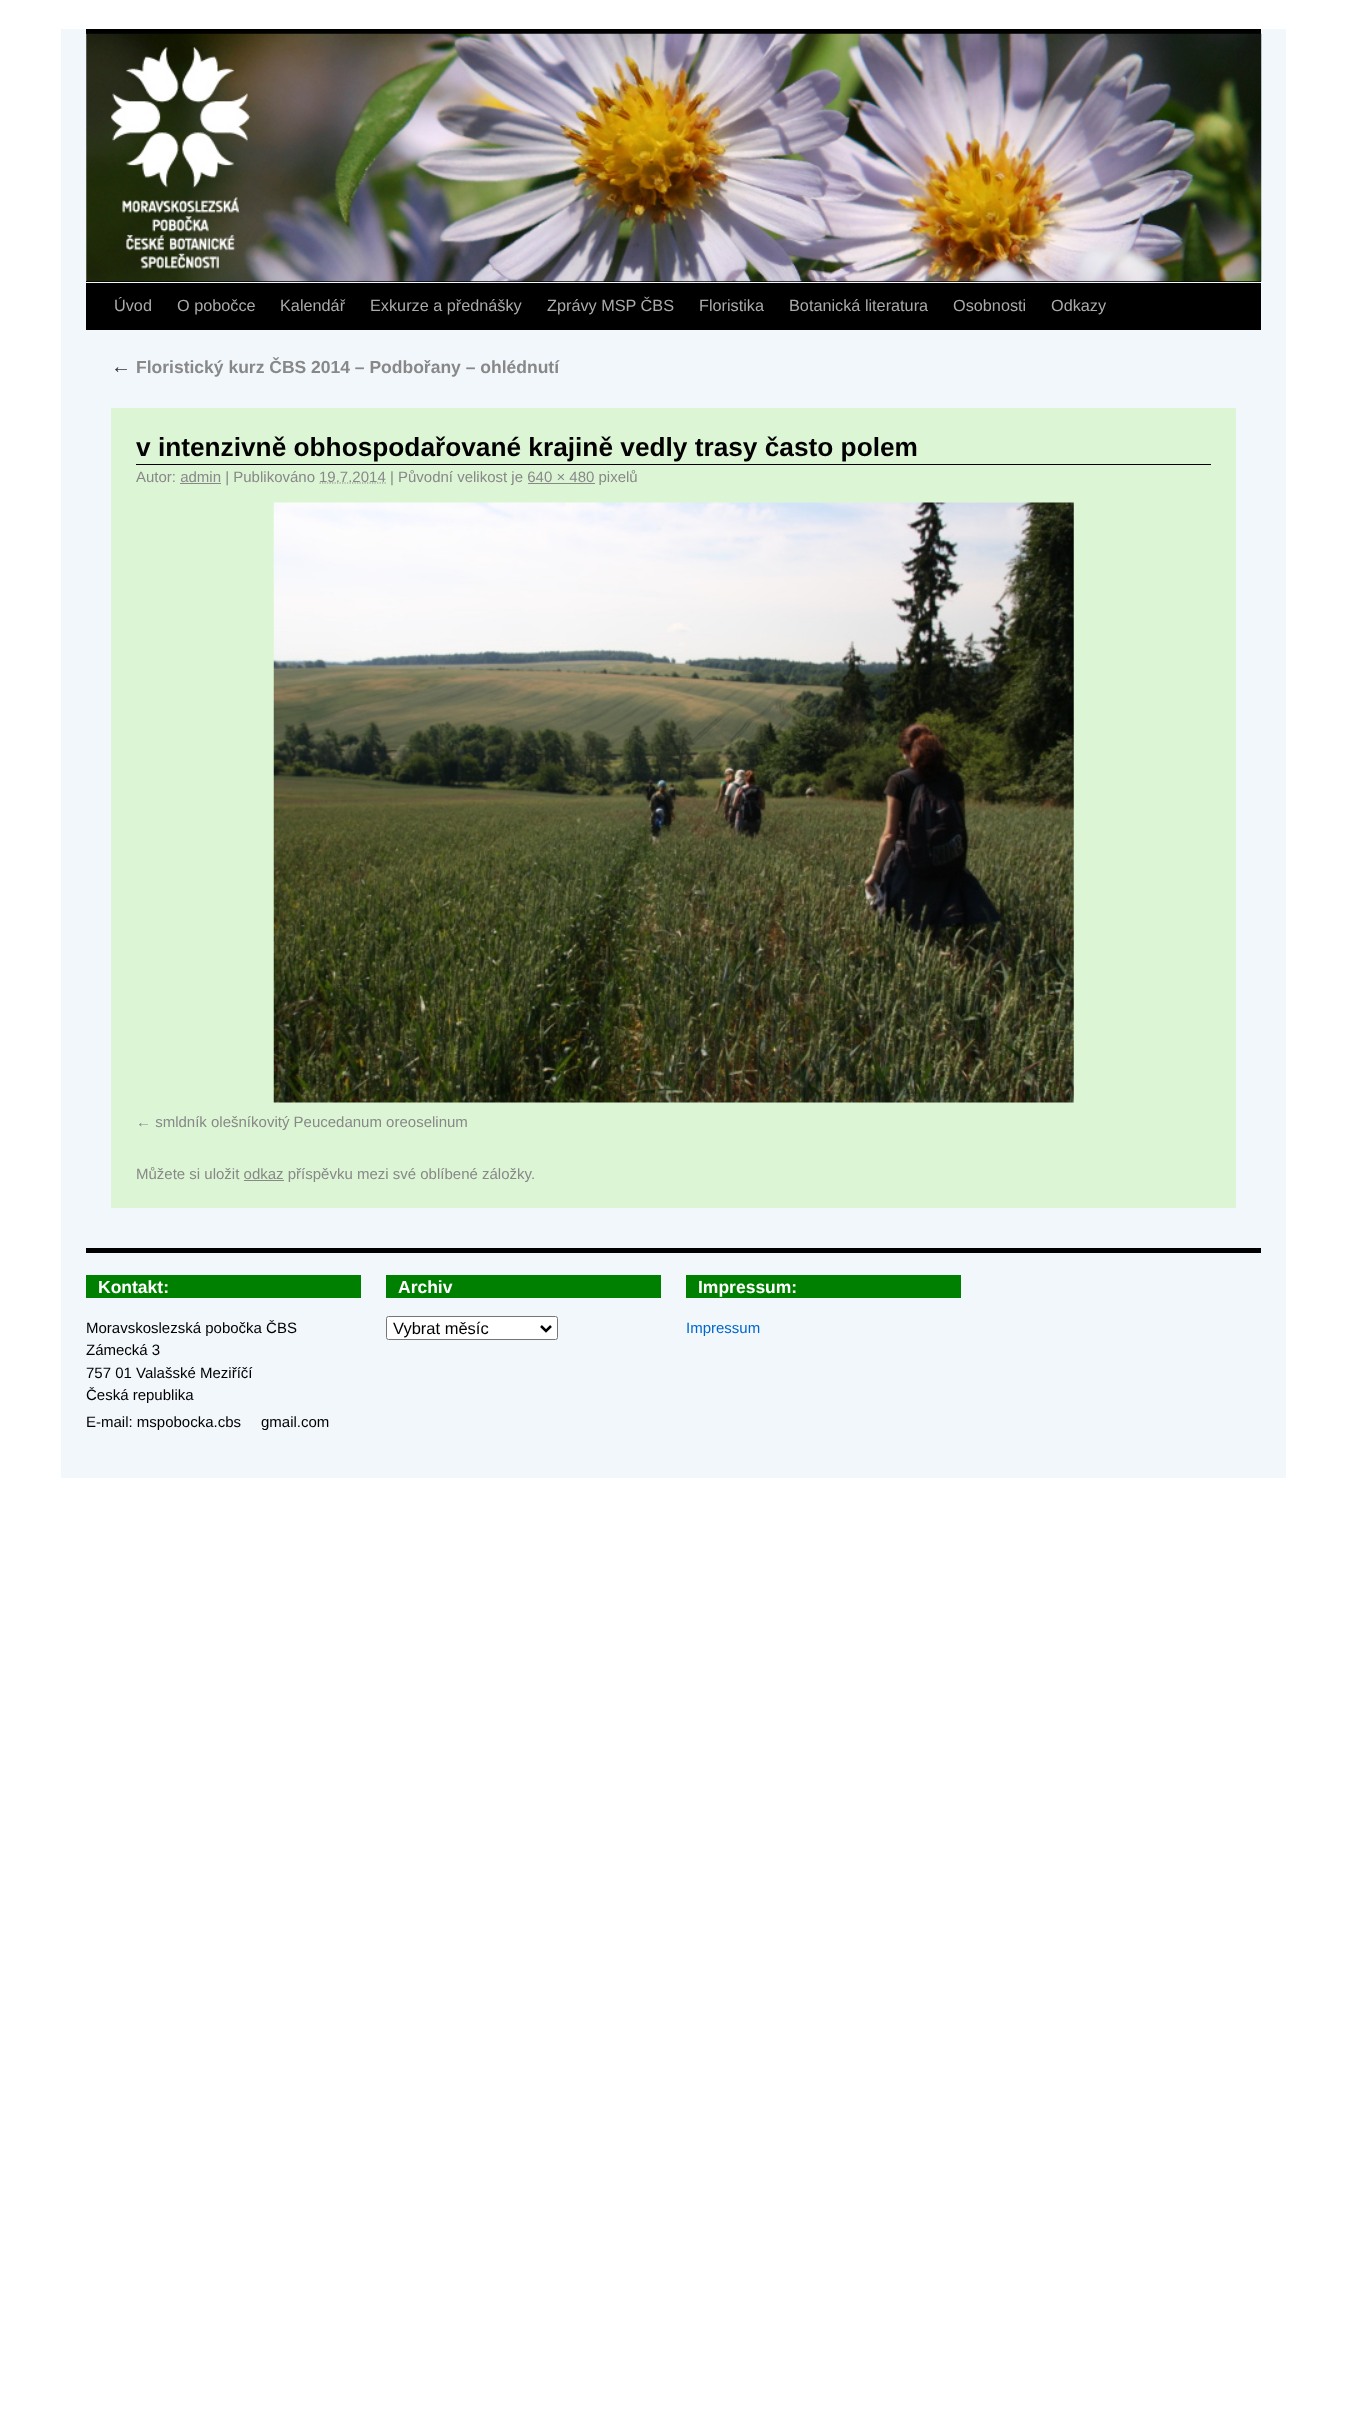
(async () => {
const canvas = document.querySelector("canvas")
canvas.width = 1347
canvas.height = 2432
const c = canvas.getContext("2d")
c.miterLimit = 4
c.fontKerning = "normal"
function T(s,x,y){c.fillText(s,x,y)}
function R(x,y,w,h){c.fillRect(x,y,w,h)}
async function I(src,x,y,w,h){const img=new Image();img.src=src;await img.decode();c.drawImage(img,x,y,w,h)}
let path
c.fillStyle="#fff"
R(0,0,1347,2432)
c.fillStyle="#f2f7fc"
R(61,29,1225,1449)
c.fillStyle="#000"
R(86,29,1175,5)
R(86,281,1175,1)
await I("1.png",86,33,1176,249)
R(86,283,1175,47)
c.font="16.25px Liberation Sans"
c.fillStyle="#aaa"
T("Úvod",114,311)
T("O pobočce",177,311)
T("Kalendář",280,311)
T("Exkurze a přednášky",370,311)
T("Zprávy MSP ČBS",547,311)
T("Floristika",699,311)
T("Botanická literatura",789,311)
T("Osobnosti",953,311)
T("Odkazy",1051,311)
c.font="italic 20px Liberation Sans"
c.fillStyle="#333"
T("←",111,373)
c.font="bold 17.5px Liberation Sans"
c.fillStyle="#888"
T("Floristický kurz ČBS 2014 – Podbořany – ohlédnutí",136,373)
c.fillStyle="#dcf6d5"
R(111,408,1125,800)
c.fillStyle="#000"
R(136,464,1075,1)
c.font="bold 26.25px Liberation Sans"
T("v intenzivně obhospodařované krajině vedly trasy často polem",136,456)
c.font="15px Liberation Sans"
c.fillStyle="#888"
T("Autor: admin | Publikováno",136,482)
path = new Path2D("M319.5 483h66.5")
c.strokeStyle="#888"
c.lineWidth=1.2
c.setLineDash([1.25,1.25])
c.stroke(path)
T("19.7.2014 | Původní velikost je 640 × 480 pixelů",319,482)
R(180,483,41,1)
R(528,483,67,1)
await I("2.png",273,502,801,601)
T("← smldník olešníkovitý Peucedanum oreoselinum",136,1127)
T("Můžete si uložit odkaz příspěvku mezi své oblíbené záložky.",136,1179)
R(244,1180,40,1)
c.fillStyle="#000"
R(86,1248,1175,5)
c.fillStyle="#008000"
R(86,1275,275,23)
c.font="bold 17.5px Liberation Sans"
c.fillStyle="#fff"
T("Kontakt:",98,1293)
c.font="15px Liberation Sans"
c.fillStyle="#000"
T("Moravskoslezská pobočka ČBS",86,1333)
T("Zámecká 3",86,1355)
T("757 01 Valašské Meziříčí",86,1378)
T("Česká republika",86,1400)
T("E-mail: mspobocka.cbs",86,1427)
T("gmail.com",261,1427)
c.fillStyle="#008000"
R(386,1275,275,23)
c.font="bold 17.5px Liberation Sans"
c.fillStyle="#fff"
T("Archiv",398,1293)
c.beginPath()
c.roundRect(386.5,1316.5,171,23,2)
c.fill()
c.strokeStyle="#767676"
c.lineWidth=1
c.setLineDash([])
c.stroke()
path = new Path2D("M541 1326l5 5l5-5")
c.strokeStyle="#000"
c.lineWidth=2.5
c.stroke(path)
c.font="16.5px Liberation Sans"
c.fillStyle="#000"
T("Vybrat měsíc",393,1334)
c.fillStyle="#008000"
R(686,1275,275,23)
c.font="bold 17.5px Liberation Sans"
c.fillStyle="#fff"
T("Impressum:",698,1293)
c.font="15px Liberation Sans"
c.fillStyle="#06c"
T("Impressum",686,1333)
})()
